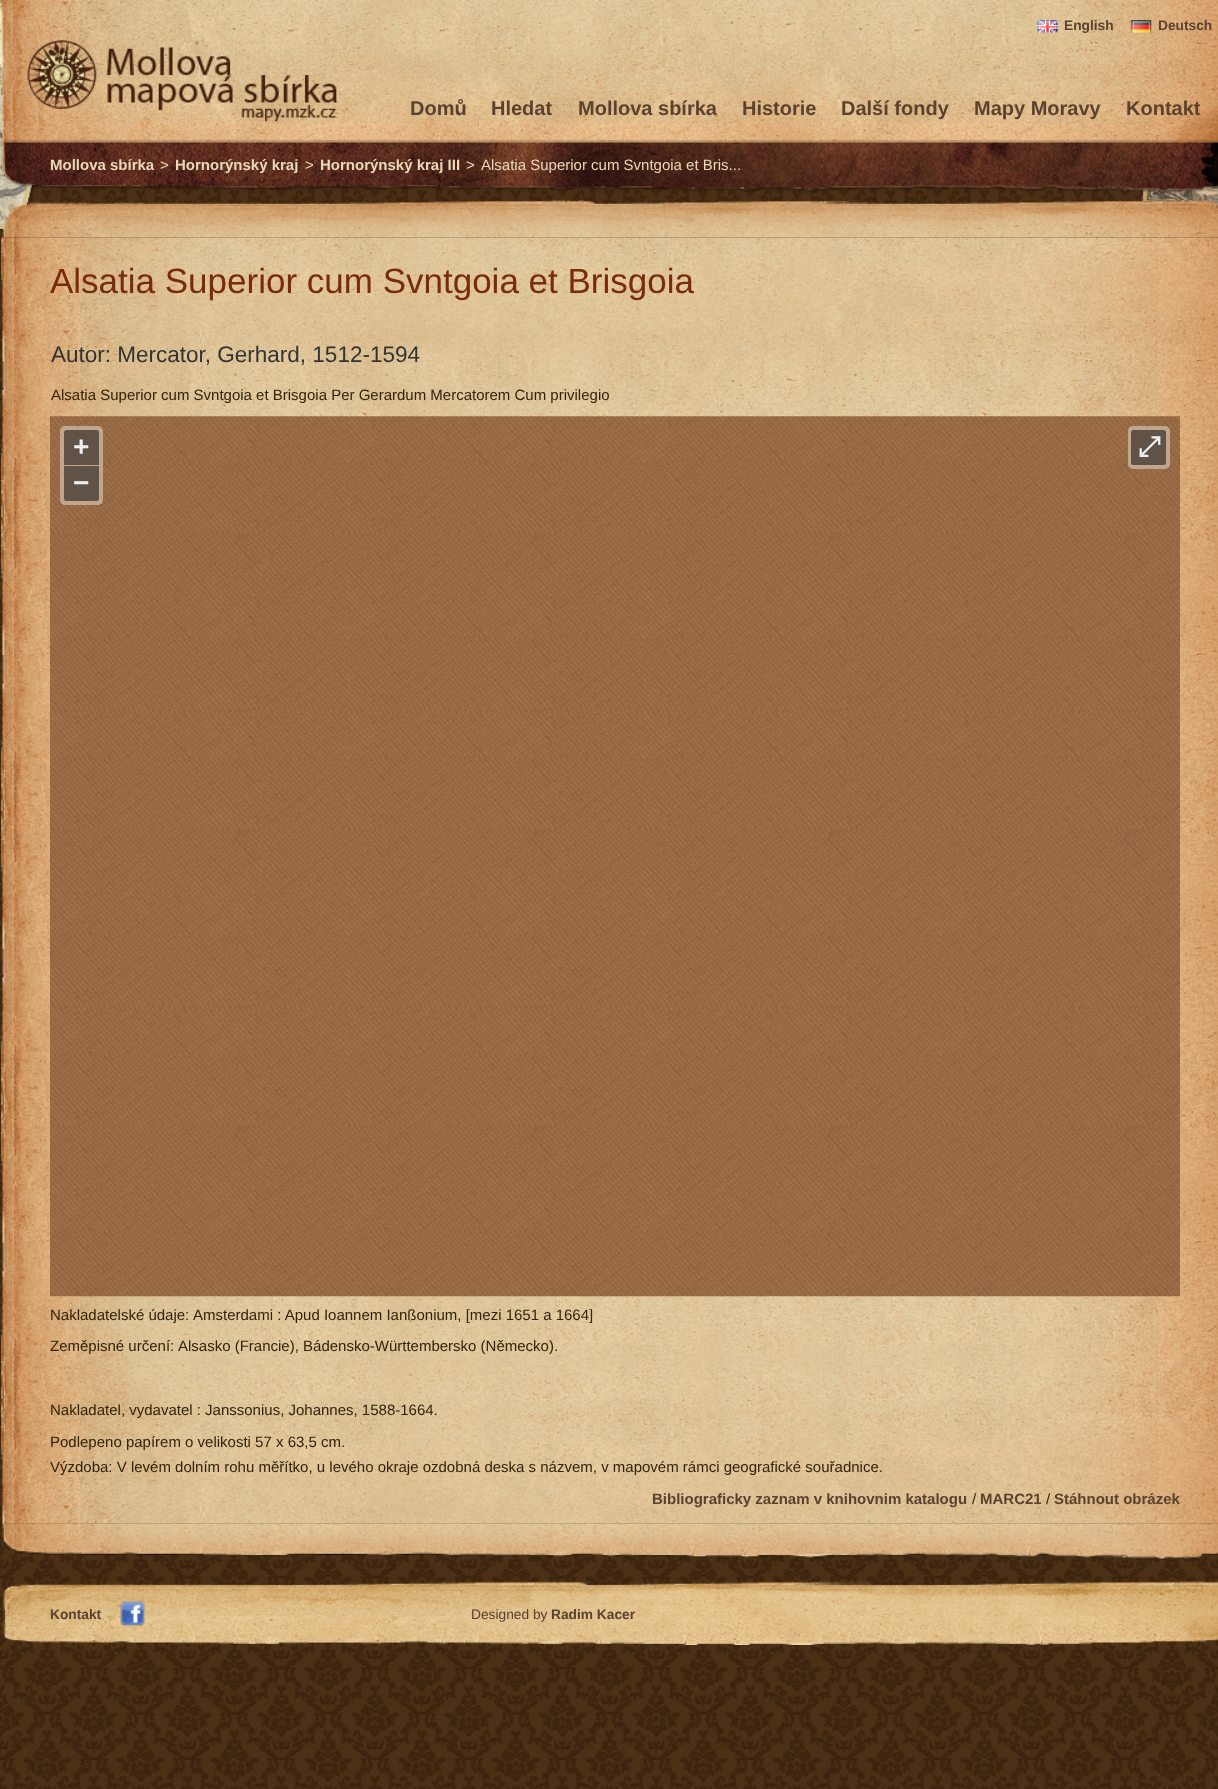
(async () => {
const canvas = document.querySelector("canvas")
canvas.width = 1218
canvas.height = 1789
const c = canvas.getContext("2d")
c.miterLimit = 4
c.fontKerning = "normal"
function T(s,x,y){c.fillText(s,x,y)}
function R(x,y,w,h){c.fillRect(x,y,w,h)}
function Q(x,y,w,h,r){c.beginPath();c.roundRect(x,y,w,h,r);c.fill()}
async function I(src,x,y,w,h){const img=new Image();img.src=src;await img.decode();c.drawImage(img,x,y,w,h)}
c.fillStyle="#fff"
R(0,0,1218,1789)
await I("1.png",0,0,1218,1789)
await I("2.png",0,0,1218,233)
await I("3.png",0,0,1218,194)
await I("4.png",1037,20,21,13)
c.font="bold 13.75px Liberation Sans"
c.fillStyle="#5b412f"
T("English",1064,30)
await I("5.png",1131,20,21,13)
T("Deutsch",1158,30)
await I("6.png",27,39,311,83)
c.font="bold 20px Liberation Sans"
T("Domů",410,115)
T("Hledat",491,115)
T("Mollova sbírka",578,115)
T("Historie",742,115)
T("Další fondy",841,115)
T("Mapy Moravy",974,115)
T("Kontakt",1126,115)
c.font="bold 15px Liberation Sans"
c.fillStyle="#ead9b7"
T("Mollova sbírka",50,170)
c.font="15px Liberation Sans"
T(">",160,170)
c.font="bold 15px Liberation Sans"
T("Hornorýnský kraj",175,170)
c.font="15px Liberation Sans"
T(">",305,170)
c.font="bold 15px Liberation Sans"
T("Hornorýnský kraj III",320,170)
c.font="15px Liberation Sans"
T(">",466,170)
T("Alsatia Superior cum Svntgoia et Bris...",481,170)
await I("7.png",2,200,1216,38)
await I("8.png",1,237,1217,1287)
c.font="35px Liberation Sans"
c.fillStyle="#7a2b0a"
T("Alsatia Superior cum Svntgoia et Brisgoia",50,293)
c.font="22.5px Liberation Sans"
c.fillStyle="#333"
T("Autor: Mercator, Gerhard, 1512-1594",51,362)
c.font="15px Liberation Sans"
c.fillStyle="#32240b"
T("Alsatia Superior cum Svntgoia et Brisgoia Per Gerardum Mercatorem Cum privilegio",51,400)
await I("9.png",50,416,1130,881)
c.fillStyle="#ffffff66"
Q(60,426,43,79,5)
c.fillStyle="#00000080"
c.beginPath()
c.roundRect(64,430,35,35,[2.5,2.5,0,0])
c.fill()
c.font="bold 28px Liberation Sans"
c.fillStyle="#eee"
T("+",73,456)
c.fillStyle="#00000080"
c.beginPath()
c.roundRect(64,466,35,35,[0,0,2.5,2.5])
c.fill()
c.fillStyle="#eee"
T("−",73,492)
c.fillStyle="#ffffff66"
Q(1128,426,42,43,5)
c.fillStyle="#00000080"
Q(1131,430,35,35,2.5)
c.font="bold 28px FreeSerif"
c.fillStyle="#eee"
T("⤢",1138,456)
c.font="15px Liberation Sans"
c.fillStyle="#32240b"
T("Nakladatelské údaje:",50,1320)
T("Amsterdami : Apud Ioannem Ianßonium, [mezi 1651 a 1664]",193,1320)
T("Zeměpisné určení:",50,1351)
T("Alsasko (Francie), Bádensko-Württembersko (Německo).",178,1351)
T("Nakladatel, vydavatel : Janssonius, Johannes, 1588-1664.",50,1415)
T("Podlepeno papírem o velikosti 57 x 63,5 cm.",50,1447)
T("Výzdoba: V levém dolním rohu měřítko, u levého okraje ozdobná deska s názvem, v mapovém rámci geografické souřadnice.",50,1472)
c.font="bold 15px Liberation Sans"
c.fillStyle="#5b412f"
T("Bibliograficky zaznam v knihovnim katalogu",652,1504)
c.font="15px Liberation Sans"
c.fillStyle="#32240b"
T("/",972,1504)
c.font="bold 15px Liberation Sans"
c.fillStyle="#5b412f"
T("MARC21",980,1504)
c.font="15px Liberation Sans"
c.fillStyle="#32240b"
T("/",1046,1504)
c.font="bold 15px Liberation Sans"
c.fillStyle="#5b412f"
T("Stáhnout obrázek",1054,1504)
await I("10.png",2,1523,1216,37)
await I("11.png",2,1581,1216,64)
c.font="bold 13.75px Liberation Sans"
T("Kontakt",50,1619)
await I("12.png",120,1601,25,26)
c.font="13.75px Liberation Sans"
T("Designed by",471,1619)
c.font="bold 13.75px Liberation Sans"
T("Radim Kacer",551,1619)
})()
